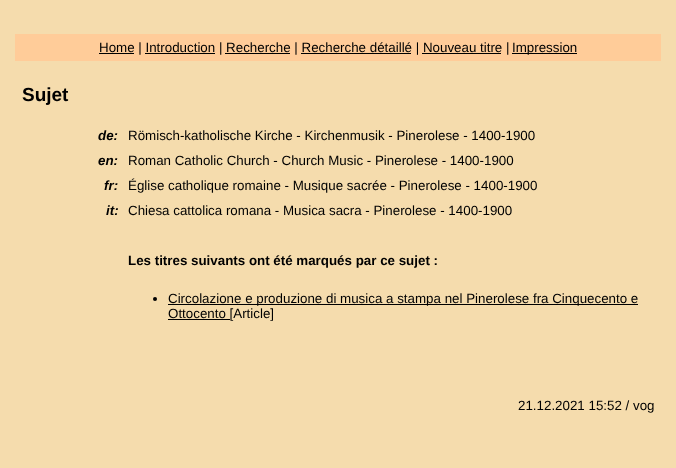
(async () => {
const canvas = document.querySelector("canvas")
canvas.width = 676
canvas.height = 468
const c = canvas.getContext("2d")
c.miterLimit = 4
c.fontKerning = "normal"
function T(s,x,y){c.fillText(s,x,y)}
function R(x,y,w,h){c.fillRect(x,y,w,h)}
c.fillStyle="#f5dcad"
R(0,0,676,468)
c.fillStyle="#fc9"
R(15,34,646,27)
c.fillStyle="#000"
R(99,53,35,1)
c.font="13.35px Liberation Sans"
T("Home | Introduction | Recherche | Recherche détaillé | Nouveau titre |",99,52)
R(512,53,65,1)
T("Impression",512,52)
R(145,53,70,1)
R(225,53,65,1)
R(301,53,110,1)
R(422,53,79,1)
c.font="bold 19px Liberation Sans"
T("Sujet",22,101)
c.font="italic bold 13.35px Liberation Sans"
T("de:",98,140)
c.font="13.35px Liberation Sans"
T("Römisch-katholische Kirche - Kirchenmusik - Pinerolese - 1400-1900",128,140)
c.font="italic bold 13.35px Liberation Sans"
T("en:",98,165)
c.font="13.35px Liberation Sans"
T("Roman Catholic Church - Church Music - Pinerolese - 1400-1900",128,165)
c.font="italic bold 13.35px Liberation Sans"
T("fr:",104,190)
c.font="13.35px Liberation Sans"
T("Église catholique romaine - Musique sacrée - Pinerolese - 1400-1900",128,190)
c.font="italic bold 13.35px Liberation Sans"
T("it:",106,215)
c.font="13.35px Liberation Sans"
T("Chiesa cattolica romana - Musica sacra - Pinerolese - 1400-1900",128,215)
c.font="bold 13.35px Liberation Sans"
T("Les titres suivants ont été marqués par ce sujet :",128,265)
c.beginPath()
c.arc(155,299,2,0,7)
c.fill()
R(168,304,470,1)
c.font="13.35px Liberation Sans"
T("Circolazione e produzione di musica a stampa nel Pinerolese fra Cinquecento e",168,303)
R(168,319,62,1)
T("Ottocento [Article]",168,318)
T("21.12.2021 15:52 / vog",518,410)
})()
